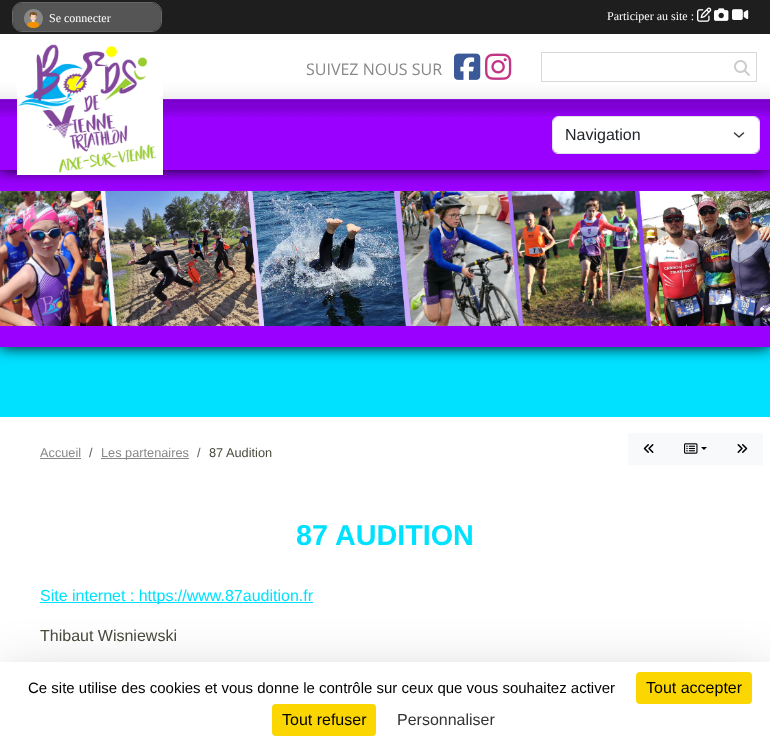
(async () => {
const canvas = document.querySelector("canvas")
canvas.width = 770
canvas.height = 746
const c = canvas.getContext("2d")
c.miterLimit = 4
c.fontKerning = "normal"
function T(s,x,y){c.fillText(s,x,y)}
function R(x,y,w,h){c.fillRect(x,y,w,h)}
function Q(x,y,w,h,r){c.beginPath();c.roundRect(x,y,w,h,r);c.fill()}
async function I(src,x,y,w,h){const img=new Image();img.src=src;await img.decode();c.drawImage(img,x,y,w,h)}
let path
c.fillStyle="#00e1ff"
R(0,0,770,746)
c.fillStyle="#000"
c.filter="blur(7.5px)"
c.beginPath()
c.rect(0,170,770,177)
c.fill()
c.filter="none"
c.fillStyle="#90f"
R(0,170,770,177)
await I("10.png",0,191,770,135)
c.fillStyle="#000"
c.filter="blur(7.5px)"
c.beginPath()
c.rect(0,34,770,136)
c.fill()
c.filter="none"
c.fillStyle="#1e1e1e"
R(0,0,770,34)
c.beginPath()
c.roundRect(12.5,2.5,149,29,9.5)
c.strokeStyle="#666"
c.stroke()
c.fillStyle="#555"
Q(13,3,148,28,9)
await I("1.png",24,9,19,19)
c.font="12px Liberation Serif"
c.fillStyle="#fff"
T("Se connecter",49,22)
T("Participer au site :",607,20)
await I("2.png",697,7,15,15)
await I("3.png",714,8,15,13)
await I("4.png",732,9,17,11)
c.fillStyle="#90f"
R(0,99,770,71)
await I("5.png",0,34,770,83)
await I("6.png",17,44,146,131)
c.font="16px Open Sans"
c.fillStyle="#888"
T("SUIVEZ NOUS SUR",306,75)
await I("7.png",454,53,27,27)
await I("8.png",485,53,27,27)
c.strokeStyle="#d8d8d8"
c.strokeRect(541.5,52.5,215,29)
await I("9.png",734,60,16,16)
c.fillStyle="#fff"
Q(553,117,206,36,5)
path = new Path2D("M734.5 133l4.5 4l4.5-4")
c.strokeStyle="#343a40"
c.lineWidth=1.5
c.lineCap="round"
c.lineJoin="round"
c.stroke(path)
c.beginPath()
c.roundRect(552.5,116.5,207,37,5.5)
c.strokeStyle="#dee2e6"
c.lineWidth=1
c.lineJoin="miter"
c.stroke()
c.font="16px Liberation Sans"
c.fillStyle="#212529"
T("Navigation",565,140)
c.fillStyle="#fff"
R(0,417,770,245)
c.font="12.75px Liberation Sans"
c.fillStyle="#888"
T("Accueil",40,457)
R(40,458,41,1)
c.fillStyle="#595c5f"
T("/",89,457)
c.fillStyle="#888"
R(101,458,88,1)
T("Les partenaires",101,457)
c.fillStyle="#595c5f"
T("/",197,457)
c.fillStyle="#4a4a3e"
T("87 Audition",209,457)
c.fillStyle="#f8f9fa"
R(628,433,135,32)
await I("11.png",643,444,11,9)
await I("12.png",684,443,14,11)
c.fillStyle="#000"
path = new Path2D("M701 447h6l-3 3z")
c.fill(path)
await I("13.png",737,444,11,9)
c.font="bold 28.75px Liberation Sans"
c.fillStyle="#00e1ff"
T("87 AUDITION",296,545)
R(40,602,273,1)
c.font="16px Liberation Sans"
T("Site internet : https://www.87audition.fr",40,601)
c.fillStyle="#4a4a3e"
T("Thibaut Wisniewski",40,641)
c.fillStyle="#00000040"
c.filter="blur(30px)"
c.beginPath()
c.rect(0,682,770,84)
c.fill()
c.filter="none"
c.fillStyle="#fff"
R(0,662,770,84)
c.font="15px Liberation Sans"
c.fillStyle="#000"
T("Ce site utilise des cookies et vous donne le contrôle sur ceux que vous souhaitez activer",28,693)
c.fillStyle="#fbd600"
Q(636,672,116,32,4)
c.font="16px Liberation Sans"
c.fillStyle="#000"
T("Tout accepter",646,693)
c.fillStyle="#fbd600"
Q(272,704,104,32,4)
c.fillStyle="#000"
T("Tout refuser",282,725)
c.fillStyle="#333"
T("Personnaliser",397,725)
})()
